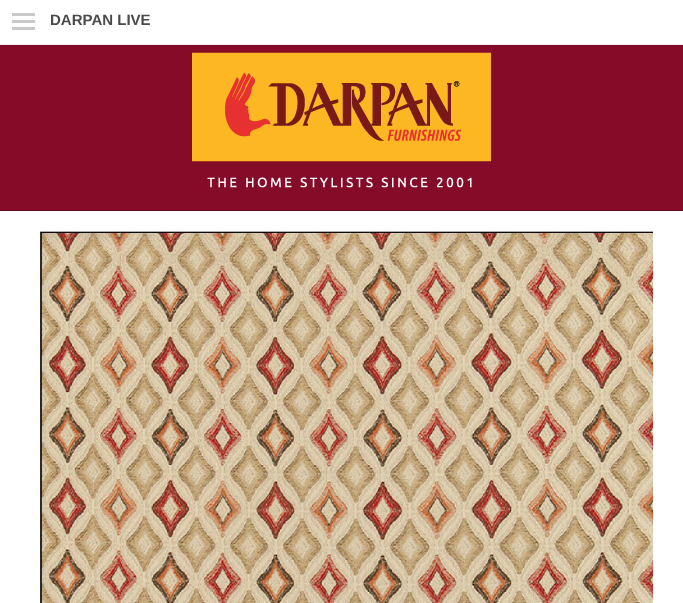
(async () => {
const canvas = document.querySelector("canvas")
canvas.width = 683
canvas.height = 603
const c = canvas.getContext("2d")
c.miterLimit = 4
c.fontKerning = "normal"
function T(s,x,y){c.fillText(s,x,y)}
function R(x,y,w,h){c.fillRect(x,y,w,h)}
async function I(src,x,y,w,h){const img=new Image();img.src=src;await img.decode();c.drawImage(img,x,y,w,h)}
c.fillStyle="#fff"
R(0,0,683,603)
c.fillStyle="#c9c9c9"
R(12,20,23,3)
R(12,13,23,3)
R(12,27,23,3)
c.fillStyle="#eee"
R(0,44,683,1)
c.font="bold 15px Liberation Sans"
c.fillStyle="#4a4a4a"
T("DARPAN LIVE",50,25)
c.fillStyle="#840c29"
R(0,45,683,165)
c.fillStyle="#5c081d"
R(0,210,683,1)
await I("1.png",192,52,299,136)
await I("2.png",37,229,616,374)
})()
